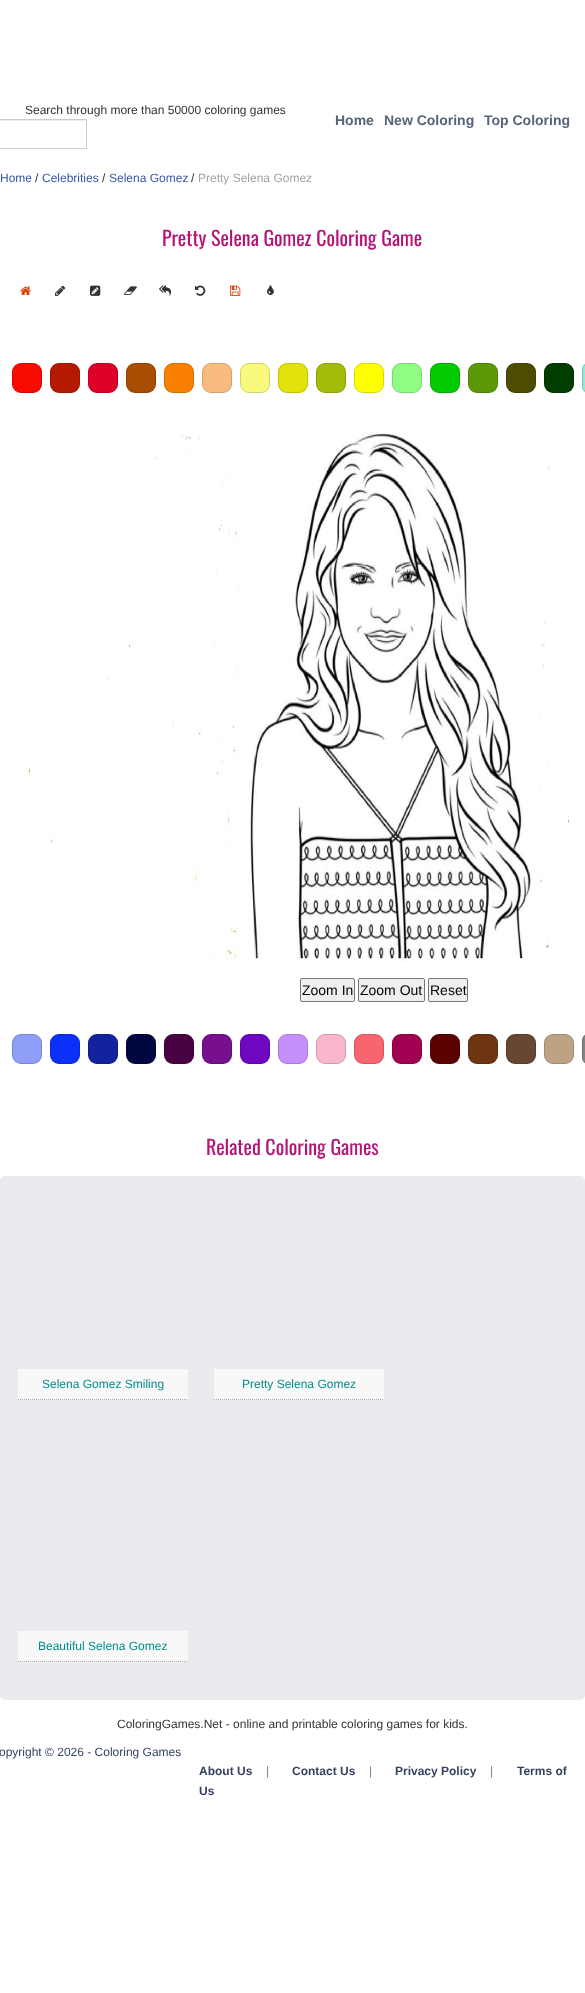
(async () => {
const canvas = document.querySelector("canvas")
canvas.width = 585
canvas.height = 1993
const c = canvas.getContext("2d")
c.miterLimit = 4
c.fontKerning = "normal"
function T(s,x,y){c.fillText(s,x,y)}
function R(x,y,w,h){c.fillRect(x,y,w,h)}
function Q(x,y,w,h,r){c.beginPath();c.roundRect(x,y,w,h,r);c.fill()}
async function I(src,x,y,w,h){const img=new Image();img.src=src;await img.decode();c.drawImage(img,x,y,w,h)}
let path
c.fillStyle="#fff"
R(0,0,585,1993)
c.font="12px Liberation Sans"
c.fillStyle="#333"
T("Search through more than 50000 coloring games",25,114)
c.fillStyle="#ececec"
path = new Path2D("M-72 121h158v-1h-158c-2 0-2 2-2 3c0-1 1-2 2-2z")
c.fill(path)
c.strokeStyle="#ccc"
c.strokeRect(-.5,119.5,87,29)
c.font="bold 14px Liberation Sans"
c.fillStyle="#576376"
T("Home",335,125)
T("New Coloring",384,125)
T("Top Coloring",484,125)
c.font="12px Liberation Sans"
c.fillStyle="#3657a7"
T("Home",0,182)
c.fillStyle="#333"
T("/",35,182)
c.fillStyle="#3657a7"
T("Celebrities",42,182)
c.fillStyle="#333"
T("/",102,182)
c.fillStyle="#3657a7"
T("Selena Gomez",109,182)
c.fillStyle="#333"
T("/",191,182)
c.fillStyle="#a1a3a6"
T("Pretty Selena Gomez",198,182)
c.font="20px Oswald"
c.fillStyle="#b41376"
T("Pretty Selena Gomez Coloring Game",162,246)
await I("1.png",20,286,11,9)
await I("2.png",55,285,11,11)
await I("3.png",90,285,11,11)
await I("4.png",124,286,13,9)
await I("5.png",159,285,12,11)
await I("6.png",195,285,11,11)
await I("7.png",230,285,11,11)
await I("8.png",267,285,7,10)
c.fillStyle="#f90b01"
Q(12,363,30,30,9)
c.beginPath()
c.roundRect(12.5,363.5,29,29,8.5)
c.strokeStyle="#00000026"
c.stroke()
c.fillStyle="#b51a01"
Q(50,363,30,30,9)
c.beginPath()
c.roundRect(50.5,363.5,29,29,8.5)
c.stroke()
c.fillStyle="#df0029"
Q(88,363,30,30,9)
c.beginPath()
c.roundRect(88.5,363.5,29,29,8.5)
c.stroke()
c.fillStyle="#a84d02"
Q(126,363,30,30,9)
c.beginPath()
c.roundRect(126.5,363.5,29,29,8.5)
c.stroke()
c.fillStyle="#f98001"
Q(164,363,30,30,9)
c.beginPath()
c.roundRect(164.5,363.5,29,29,8.5)
c.stroke()
c.fillStyle="#f9bc7e"
Q(202,363,30,30,9)
c.beginPath()
c.roundRect(202.5,363.5,29,29,8.5)
c.stroke()
c.fillStyle="#f9f97e"
Q(240,363,30,30,9)
c.beginPath()
c.roundRect(240.5,363.5,29,29,8.5)
c.stroke()
c.fillStyle="#e4e20b"
Q(278,363,30,30,9)
c.beginPath()
c.roundRect(278.5,363.5,29,29,8.5)
c.stroke()
c.fillStyle="#a3bc08"
Q(316,363,30,30,9)
c.beginPath()
c.roundRect(316.5,363.5,29,29,8.5)
c.stroke()
c.fillStyle="#ff0"
Q(354,363,30,30,9)
c.beginPath()
c.roundRect(354.5,363.5,29,29,8.5)
c.stroke()
c.fillStyle="#90fc84"
Q(392,363,30,30,9)
c.beginPath()
c.roundRect(392.5,363.5,29,29,8.5)
c.stroke()
c.fillStyle="#03cb01"
Q(430,363,30,30,9)
c.beginPath()
c.roundRect(430.5,363.5,29,29,8.5)
c.stroke()
c.fillStyle="#5b9908"
Q(468,363,30,30,9)
c.beginPath()
c.roundRect(468.5,363.5,29,29,8.5)
c.stroke()
c.fillStyle="#4e4c01"
Q(506,363,30,30,9)
c.beginPath()
c.roundRect(506.5,363.5,29,29,8.5)
c.stroke()
c.fillStyle="#013d01"
Q(544,363,30,30,9)
c.beginPath()
c.roundRect(544.5,363.5,29,29,8.5)
c.stroke()
c.fillStyle="#8beddc"
Q(582,363,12,30,9)
c.beginPath()
c.roundRect(582.5,363.5,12,29,8.5)
c.stroke()
await I("9.png",21,431,551,530)
c.fillStyle="#efefef"
c.beginPath()
c.roundRect(300.5,978.5,54,23,1.5)
c.fill()
c.strokeStyle="#767676"
c.stroke()
c.font="14px Liberation Sans"
c.fillStyle="#000"
T("Zoom In",302,995)
c.fillStyle="#efefef"
c.beginPath()
c.roundRect(358.5,978.5,66,23,1.5)
c.fill()
c.stroke()
c.fillStyle="#000"
T("Zoom Out",360,995)
c.fillStyle="#efefef"
c.beginPath()
c.roundRect(428.5,978.5,39,23,1.5)
c.fill()
c.stroke()
c.fillStyle="#000"
T("Reset",430,995)
c.fillStyle="#8f9ef9"
Q(12,1034,30,30,9)
c.beginPath()
c.roundRect(12.5,1034.5,29,29,8.5)
c.strokeStyle="#00000026"
c.stroke()
c.fillStyle="#0d30f9"
Q(50,1034,30,30,9)
c.beginPath()
c.roundRect(50.5,1034.5,29,29,8.5)
c.stroke()
c.fillStyle="#13229e"
Q(88,1034,30,30,9)
c.beginPath()
c.roundRect(88.5,1034.5,29,29,8.5)
c.stroke()
c.fillStyle="#01083f"
Q(126,1034,30,30,9)
c.beginPath()
c.roundRect(126.5,1034.5,29,29,8.5)
c.stroke()
c.fillStyle="#480143"
Q(164,1034,30,30,9)
c.beginPath()
c.roundRect(164.5,1034.5,29,29,8.5)
c.stroke()
c.fillStyle="#780f8f"
Q(202,1034,30,30,9)
c.beginPath()
c.roundRect(202.5,1034.5,29,29,8.5)
c.stroke()
c.fillStyle="#6f06c1"
Q(240,1034,30,30,9)
c.beginPath()
c.roundRect(240.5,1034.5,29,29,8.5)
c.stroke()
c.fillStyle="#c58efb"
Q(278,1034,30,30,9)
c.beginPath()
c.roundRect(278.5,1034.5,29,29,8.5)
c.stroke()
c.fillStyle="#f9b7ce"
Q(316,1034,30,30,9)
c.beginPath()
c.roundRect(316.5,1034.5,29,29,8.5)
c.stroke()
c.fillStyle="#f9656f"
Q(354,1034,30,30,9)
c.beginPath()
c.roundRect(354.5,1034.5,29,29,8.5)
c.stroke()
c.fillStyle="#a10151"
Q(392,1034,30,30,9)
c.beginPath()
c.roundRect(392.5,1034.5,29,29,8.5)
c.stroke()
c.fillStyle="#5b0101"
Q(430,1034,30,30,9)
c.beginPath()
c.roundRect(430.5,1034.5,29,29,8.5)
c.stroke()
c.fillStyle="#6e3511"
Q(468,1034,30,30,9)
c.beginPath()
c.roundRect(468.5,1034.5,29,29,8.5)
c.stroke()
c.fillStyle="#674733"
Q(506,1034,30,30,9)
c.beginPath()
c.roundRect(506.5,1034.5,29,29,8.5)
c.stroke()
c.fillStyle="#bca383"
Q(544,1034,30,30,9)
c.beginPath()
c.roundRect(544.5,1034.5,29,29,8.5)
c.stroke()
c.fillStyle="#858585"
Q(582,1034,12,30,9)
c.beginPath()
c.roundRect(582.5,1034.5,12,29,8.5)
c.stroke()
c.font="20px Oswald"
c.fillStyle="#b41376"
T("Related Coloring Games",206,1155)
c.fillStyle="#eaebee"
Q(0,1176,585,524,5)
c.fillStyle="#f8f8f8"
R(18,1369,170,31)
path = new Path2D("M18 1399.5h170")
c.strokeStyle="#a9a9a9"
c.setLineDash([1,1])
c.stroke(path)
c.font="12px Liberation Sans"
c.fillStyle="#008c8c"
T("Selena Gomez Smiling",42,1388)
c.fillStyle="#f8f8f8"
R(214,1369,170,31)
path = new Path2D("M214 1399.5h170")
c.stroke(path)
c.fillStyle="#008c8c"
T("Pretty Selena Gomez",242,1388)
c.fillStyle="#f8f8f8"
R(18,1631,170,31)
path = new Path2D("M18 1661.5h170")
c.stroke(path)
c.fillStyle="#008c8c"
T("Beautiful Selena Gomez",38,1650)
c.fillStyle="#333"
T("ColoringGames.Net - online and printable coloring games for kids.",117,1728)
c.fillStyle="#354360"
T("opyright © 2026 - Coloring Games",-1,1756)
c.font="bold 12px Liberation Sans"
T("About Us",199,1775)
c.font="12px Liberation Sans"
c.fillStyle="#808080"
T("|",266,1775)
c.font="bold 12px Liberation Sans"
c.fillStyle="#354360"
T("Contact Us",292,1775)
c.font="12px Liberation Sans"
c.fillStyle="#808080"
T("|",369,1775)
c.font="bold 12px Liberation Sans"
c.fillStyle="#354360"
T("Privacy Policy",395,1775)
c.font="12px Liberation Sans"
c.fillStyle="#808080"
T("|",490,1775)
c.font="bold 12px Liberation Sans"
c.fillStyle="#354360"
T("Terms of",517,1775)
T("Us",199,1795)
})()
